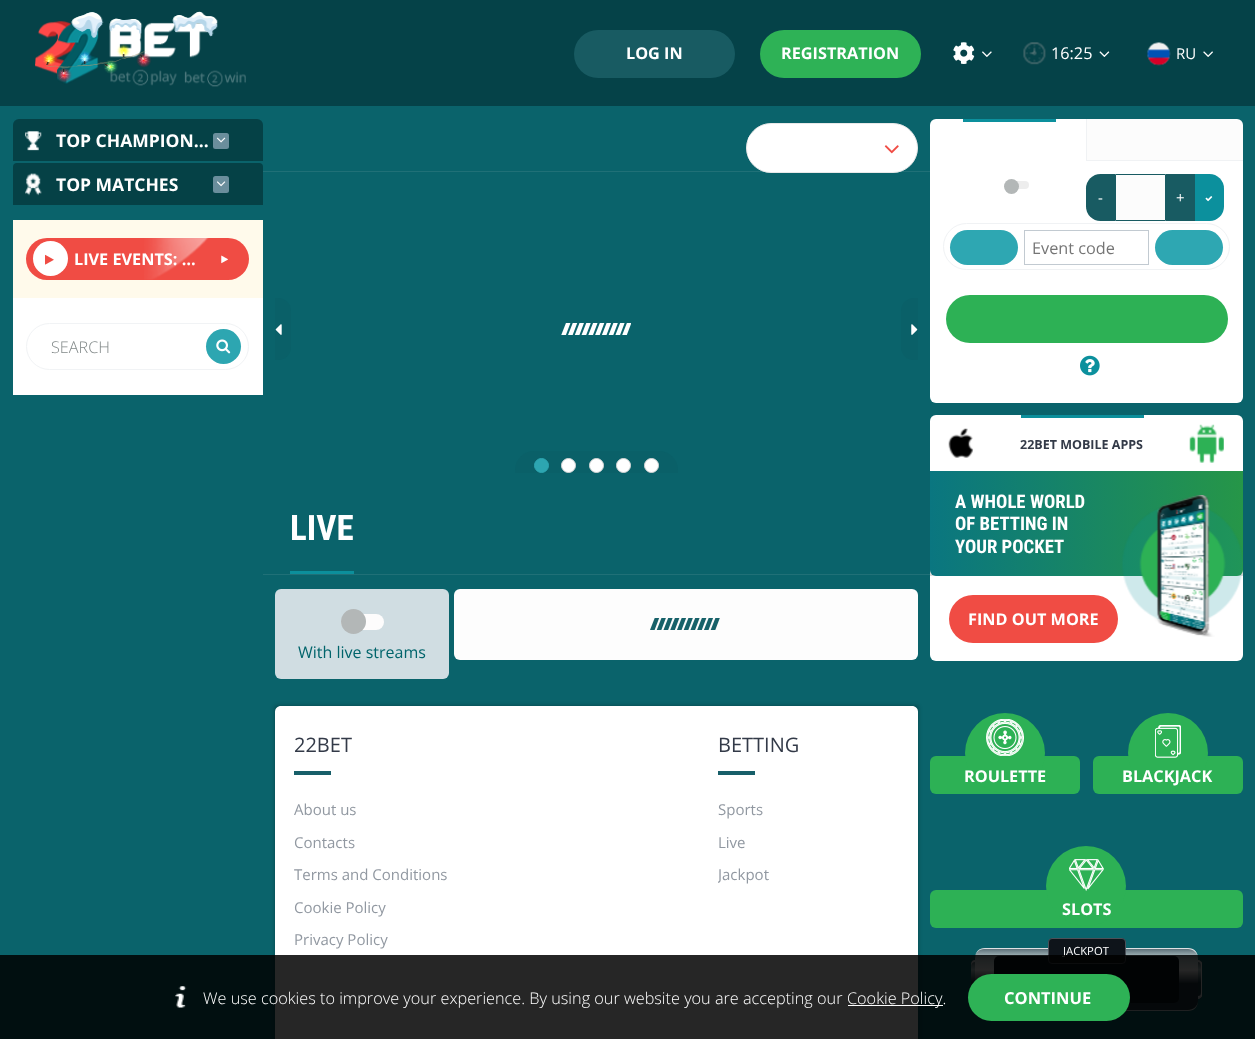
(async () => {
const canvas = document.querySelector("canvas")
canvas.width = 1255
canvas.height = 1039
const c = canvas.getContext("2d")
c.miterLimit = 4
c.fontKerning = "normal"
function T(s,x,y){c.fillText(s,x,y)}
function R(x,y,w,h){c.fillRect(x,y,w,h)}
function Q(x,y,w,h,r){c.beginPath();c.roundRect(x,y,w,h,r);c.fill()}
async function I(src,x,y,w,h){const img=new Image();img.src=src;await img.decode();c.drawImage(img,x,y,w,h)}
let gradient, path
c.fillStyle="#0a636b"
R(0,0,1255,1039)
c.fillStyle="#054248"
R(0,0,1255,106)
await I("2.png",35,21,211,66)
await I("1.png",43,11,175,72)
c.fillStyle="#185b62"
Q(574,30,161,48,24)
c.font="bold 16.25px Open Sans"
c.fillStyle="#fff"
T("LOG IN",626,59)
c.fillStyle="#2eb256"
Q(760,30,161,48,24)
c.fillStyle="#fff"
T("REGISTRATION",781,59)
await I("3.png",953,42,22,22)
await I("4.png",982,51,10,6)
await I("5.png",1023,42,23,23)
c.font="16.25px Open Sans"
T("16:25",1051,59)
await I("6.png",1099,51,11,6)
await I("7.png",1147,42,24,24)
c.font="15px Open Sans"
T("RU",1176,59)
await I("8.png",1203,51,10,6)
c.fillStyle="#054146"
c.beginPath()
c.roundRect(13,119,250,42,[6,6,0,0])
c.fill()
await I("9.png",25,131,17,20)
c.font="bold 17.5px Open Sans"
c.fillStyle="#fff"
T("TOP CHAMPION…",56,147)
c.fillStyle="#6a8e9c"
Q(213,133,16,16,2.5)
await I("10.png",216,137,10,6)
c.fillStyle="#054146"
c.beginPath()
c.roundRect(13,163,250,42,[4,4,0,0])
c.fill()
await I("11.png",25,173,17,23)
c.fillStyle="#fff"
T("TOP MATCHES",56,191)
c.fillStyle="#6a8e9c"
Q(213,176,16,17,2.5)
await I("12.png",217,181,9,6)
c.fillStyle="#fffaeb"
R(13,220,250,78)
c.fillStyle="#f04c44"
Q(26,238,223,42,21)
await I("13.png",144,237,65,43)
c.fillStyle="#fff"
c.beginPath()
c.arc(50.5,258.5,17.5,0,7)
c.fill()
await I("14.png",45,254,9,11)
c.font="bold 16.25px Open Sans"
T("LIVE EVENTS: …",74,265)
await I("15.png",221,255,7,9)
R(13,298,250,97)
c.beginPath()
c.roundRect(26.5,323.5,222,46,23)
c.strokeStyle="#f1f3f5"
c.stroke()
c.font="300 16.25px Open Sans"
c.fillStyle="#818888"
T("SEARCH",51,353)
c.fillStyle="#2da6b1"
c.beginPath()
c.arc(223.5,346.5,17.5,0,7)
c.fill()
await I("16.png",216,339,15,15)
c.fillStyle="#207077"
R(263,171,667,1)
c.fillStyle="#fff"
c.beginPath()
c.roundRect(746.5,123.5,171,49,24.5)
c.fill()
c.strokeStyle="#e8e8e8"
c.stroke()
Q(748,134,118,27,6)
await I("17.png",884,145,15,9)
c.fillStyle="#0a6068"
c.beginPath()
c.roundRect(275,298,16,62,[0,13,13,0])
c.fill()
await I("18.png",275,324,7,11)
c.beginPath()
c.roundRect(901,298,17,62,[13,0,0,13])
c.fill()
await I("19.png",911,324,7,11)
await I("20.png",561,323,70,12)
c.beginPath()
c.roundRect(515,451,163,22,[19,19,0,0])
c.fill()
c.fillStyle="#2da6b1"
c.beginPath()
c.arc(541.5,465.5,7,0,7)
c.fill()
c.strokeStyle="#2da6b1"
c.stroke()
c.fillStyle="#fff"
c.beginPath()
c.arc(568.5,465.5,7,0,7)
c.fill()
c.strokeStyle="#d8d8d8"
c.stroke()
c.beginPath()
c.arc(596.5,465.5,7,0,7)
c.fill()
c.stroke()
c.beginPath()
c.arc(623.5,465.5,7,0,7)
c.fill()
c.stroke()
c.beginPath()
c.arc(651.5,465.5,7,0,7)
c.fill()
c.stroke()
c.fillStyle="#0c8f9b"
R(290,571,64,3)
c.font="bold 35px Roboto Condensed"
c.fillStyle="#fff"
T("LIVE",290,540)
c.fillStyle="#207077"
R(263,574,667,1)
c.fillStyle="#d0dde2"
Q(275,589,174,90,6)
c.fillStyle="#fdfcfc"
Q(341,614,43,16,8)
c.fillStyle="#b3b7b7"
c.beginPath()
c.arc(353.5,621.5,12.5,0,7)
c.fill()
c.font="16px Open Sans"
c.fillStyle="#00646b"
T("With live streams",298,658)
c.fillStyle="#fdfdfd"
Q(454,589,464,71,6)
await I("21.png",650,618,70,12)
c.fillStyle="#fff"
c.beginPath()
c.roundRect(930,119,156,42,[6,0,0,0])
c.fill()
c.fillStyle="#0c909d"
R(963,119,93,3)
c.fillStyle="#fcfcfc"
c.beginPath()
c.roundRect(1086,119,157,42,[0,6,0,0])
c.fill()
c.fillStyle="#f0f2f4"
R(1086,160,157,1)
R(1086,119,1,42)
c.fillStyle="#fff"
c.beginPath()
c.roundRect(930,161,313,242,[0,0,6,6])
c.fill()
c.fillStyle="#ededed"
Q(1005,181,24,8,4)
c.fillStyle="#b3b7b7"
c.beginPath()
c.arc(1011.5,186.5,7.5,0,7)
c.fill()
c.fillStyle="#185b62"
c.beginPath()
c.roundRect(1086,174,29,47,[14.5,0,0,14.5])
c.fill()
c.font="15px Open Sans"
c.fillStyle="#fff"
T("-",1098,203)
c.fillStyle="#fcfcfc"
c.beginPath()
c.rect(1115.5,174.5,50,46)
c.fill()
c.strokeStyle="#185b62"
c.stroke()
c.fillStyle="#185b62"
R(1166,174,29,47)
c.fillStyle="#fff"
T("+",1176,203)
c.fillStyle="#0c909d"
c.beginPath()
c.roundRect(1195,174,29,47,[0,14.5,14.5,0])
c.fill()
await I("22.png",1205,196,8,6)
c.beginPath()
c.roundRect(943.5,223.5,286,46,23)
c.strokeStyle="#f0f2f4"
c.stroke()
c.fillStyle="#2ea7b2"
Q(950,230,68,35,17.5)
c.strokeStyle="#c2cad1"
c.strokeRect(1024.5,230.5,124,34)
c.font="16.25px Open Sans"
c.fillStyle="#757575"
T("Event code",1032,254)
c.fillStyle="#2ea7b2"
Q(1155,230,68,35,17.5)
c.fillStyle="#2db155"
Q(946,295,282,48,24)
await I("23.png",1080,355,20,21)
c.fillStyle="#fff"
Q(930,415,313,246,6)
c.fillStyle="#d9d9d9"
R(930,570,313,6)
await I("24.png",948,428,26,30)
c.fillStyle="#0c8f9b"
R(1021,415,123,3)
c.font="bold 12.5px Open Sans"
c.fillStyle="#333a48"
T("22BET MOBILE APPS",1020,449)
await I("25.png",1189,424,35,39)
gradient = c.createLinearGradient(930,524,1243,524)
gradient.addColorStop(0,"#0a7680")
gradient.addColorStop(1,"#269648")
c.fillStyle = gradient
c.beginPath()
c.roundRect(930,471,313,105,[0,0,6,6])
c.fill()
c.font="bold 18.75px Roboto Condensed"
c.fillStyle="#fff"
T("A WHOLE WORLD",955,508)
T("OF BETTING IN",955,530)
T("YOUR POCKET",955,553)
await I("26.png",1122,495,121,142)
c.fillStyle="#f04c44"
Q(949,595,169,48,24)
c.font="bold 16.25px Open Sans"
c.fillStyle="#fff"
T("FIND OUT MORE",968,625)
c.fillStyle="#2db155"
Q(930,756,150,38,6)
c.beginPath()
c.arc(1005,753,40,0,7)
c.fill()
await I("27.png",986,719,38,37)
c.fillStyle="#fff"
T("ROULETTE",964,782)
c.fillStyle="#2db155"
Q(1093,756,150,38,6)
c.beginPath()
c.arc(1168,753,40,0,7)
c.fill()
await I("28.png",1155,725,26,33)
c.fillStyle="#fff"
T("BLACKJACK",1122,782)
c.fillStyle="#2db155"
Q(930,890,313,38,6)
c.beginPath()
c.arc(1086,886,40,0,7)
c.fill()
await I("29.png",1069,859,35,32)
c.fillStyle="#fff"
T("SLOTS",1062,915)
gradient = c.createLinearGradient(1086,943,1086,1011)
gradient.addColorStop(0,"#223743")
gradient.addColorStop(.26,"#cee0e1")
gradient.addColorStop(.4,"#fff")
gradient.addColorStop(.6,"#223743")
c.fillStyle = gradient
Q(975,948,223,63,10)
c.fillStyle="#ffffffcc"
path = new Path2D("M975 1001c0 6 4 10 10 10h203c6 0 10-4 10-10c0 5-5 9-10 9h-204c-5 0-9-4-9-9z")
c.fill(path)
path = new Path2D("M984 949h204c5 0 10 4 10 9c0-6-4-10-10-10h-203c-6 0-10 4-10 10c0-5 4-9 9-9z")
c.fill(path)
c.fillStyle="#0c161d"
Q(994,956,185,47,5)
c.fillStyle="#0e141a"
c.beginPath()
c.roundRect(1048.5,938.5,77,25,3.5)
c.fill()
c.strokeStyle="#4b5058"
c.stroke()
c.font="11.25px Open Sans"
c.fillStyle="#fff"
T("JACKPOT",1063,955)
gradient = c.createLinearGradient(973,957,973,999)
gradient.addColorStop(0,"#1f3d47")
gradient.addColorStop(.3,"#b6d0d3")
gradient.addColorStop(.6,"#1f3d48")
c.fillStyle = gradient
c.beginPath()
c.roundRect(971,960,4,39,[4,0,0,4])
c.fill()
c.fillStyle="#ffffffcc"
path = new Path2D("M975 960c-3.5 0-4 3.5-4 6c0-2 2-4 4-4z")
c.fill(path)
gradient = c.createLinearGradient(1199,957,1199,999)
gradient.addColorStop(0,"#1f3d47")
gradient.addColorStop(.3,"#b6d0d3")
gradient.addColorStop(.6,"#1f3d48")
c.fillStyle = gradient
c.beginPath()
c.roundRect(1198,960,4,39,[0,4,4,0])
c.fill()
c.fillStyle="#ffffffcc"
path = new Path2D("M1201 961.5c.5 .5 1 1.5 1 2.5v31c0 2-2 4-4 4v-3c2 0 3-1 3-4z")
c.fill(path)
path = new Path2D("M1198 962c2 0 3 2 3 4v31.5c.5-.5 1-1.5 1-2.5v-31c0-2-2-4-4-4z")
c.fill(path)
c.fillStyle="#0000004d"
c.filter="blur(2px)"
c.beginPath()
c.rect(275,706,643,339)
c.fill()
c.filter="none"
c.fillStyle="#fff"
path = new Path2D("M281 706h631c3.5 0 6 2.5 6 6v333h-643v-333c0-3.5 2.5-6 6-6z")
c.fill(path)
c.font="20px Open Sans"
c.fillStyle="#333a48"
T("22BET",294,752)
c.fillStyle="#175f69"
R(294,771,37,4)
c.font="15px Open Sans"
c.fillStyle="#9198a1"
T("About us",294,815)
T("Contacts",294,848)
T("Terms and Conditions",294,880)
T("Сookie Policy",294,913)
T("Privacy Policy",294,945)
c.font="20px Open Sans"
c.fillStyle="#333a48"
T("BETTING",718,752)
c.fillStyle="#175f69"
R(718,771,37,4)
c.font="15px Open Sans"
c.fillStyle="#9198a1"
T("Sports",718,815)
T("Live",718,848)
c.save()
c.beginPath()
c.rect(718,863,51,25)
c.clip()
T("Jackpot",718,880)
c.restore()
c.fillStyle="#000000d9"
R(0,955,1255,84)
await I("30.png",175,986,12,22)
c.font="300 16.25px Open Sans"
c.fillStyle="#fff"
T("We use cookies to improve your experience. By using our website you are accepting our",203,1004)
R(848,1005,95,1)
T("Cookie Policy.",847,1004)
c.fillStyle="#2eb256"
Q(968,974,162,47,23.5)
c.font="bold 16.5px Open Sans"
c.fillStyle="#fff"
T("CONTINUE",1004,1004)
})()
